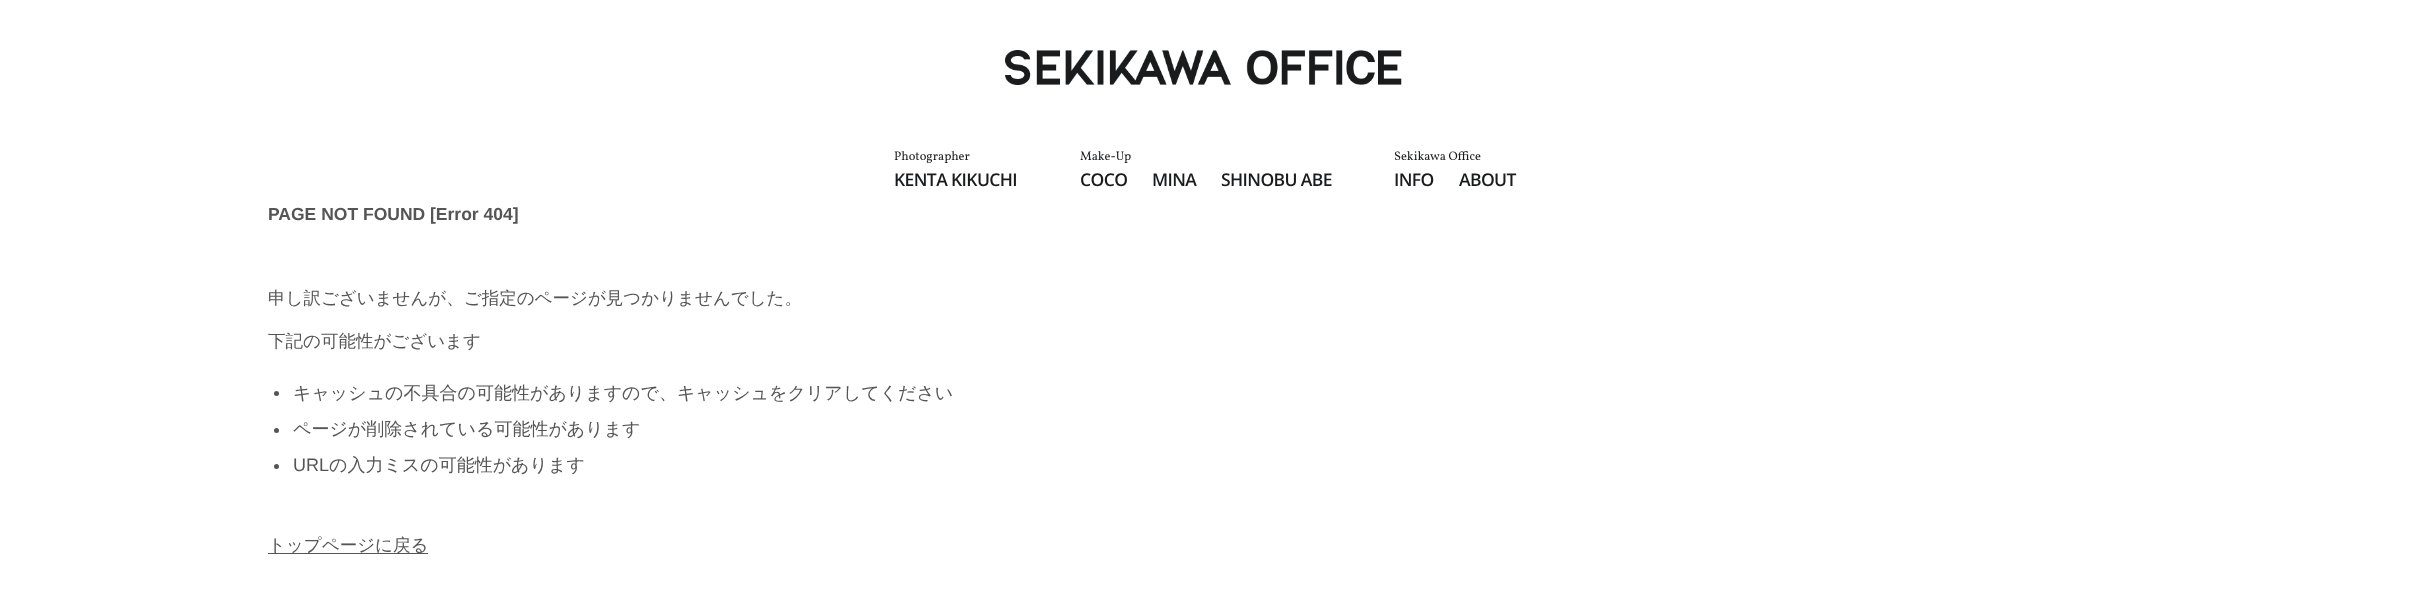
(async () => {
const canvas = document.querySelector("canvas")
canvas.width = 2409
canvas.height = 611
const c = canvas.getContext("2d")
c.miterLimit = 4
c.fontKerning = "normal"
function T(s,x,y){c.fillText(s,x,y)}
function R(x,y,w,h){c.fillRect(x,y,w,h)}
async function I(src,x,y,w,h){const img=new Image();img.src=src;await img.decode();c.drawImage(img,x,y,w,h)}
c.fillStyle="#fff"
R(0,0,2409,611)
await I("1.png",1005,50,397,35)
c.font="12.5px Vollkorn"
c.fillStyle="#1a1b1d"
T("Photographer",894,160)
c.letterSpacing="-0.6px"
c.font="600 17.5px Open Sans"
T("KENTA KIKUCHI",894,186)
c.letterSpacing="0px"
c.font="12.5px Vollkorn"
T("Make-Up",1080,160)
c.letterSpacing="-0.6px"
c.font="600 17.5px Open Sans"
T("COCO",1080,186)
T("MINA",1152,186)
T("SHINOBU ABE",1221,186)
c.letterSpacing="0px"
c.font="12.5px Vollkorn"
T("Sekikawa Office",1394,160)
c.letterSpacing="-0.6px"
c.font="600 17.5px Open Sans"
T("INFO",1394,186)
T("ABOUT",1459,186)
c.letterSpacing="0px"
c.font="bold 17.5px Liberation Sans"
c.fillStyle="#555"
T("PAGE NOT FOUND [Error 404]",268,220)
c.font="500 17.5px WenQuanYi Zen Hei"
T("申し訳ございませんが、ご指定のページが見つかりませんでした。",268,304)
T("下記の可能性がございます",268,347)
c.beginPath()
c.arc(276.5,393.5,2.5,0,7)
c.fill()
c.font="500 18px WenQuanYi Zen Hei"
T("キャッシュの不具合の可能性がありますので、キャッシュをクリアしてください",293,399)
c.beginPath()
c.arc(276.5,430.5,2.5,0,7)
c.fill()
T("ページが削除されている可能性があります",293,435)
c.beginPath()
c.arc(276.5,466.5,2.5,0,7)
c.fill()
c.font="18px Liberation Sans"
T("URL",293,471)
c.font="500 18px WenQuanYi Zen Hei"
T("の入力ミスの可能性があります",329,471)
R(268,553,160,1)
c.font="500 17.5px WenQuanYi Zen Hei"
T("トップページに戻る",268,551)
})()
